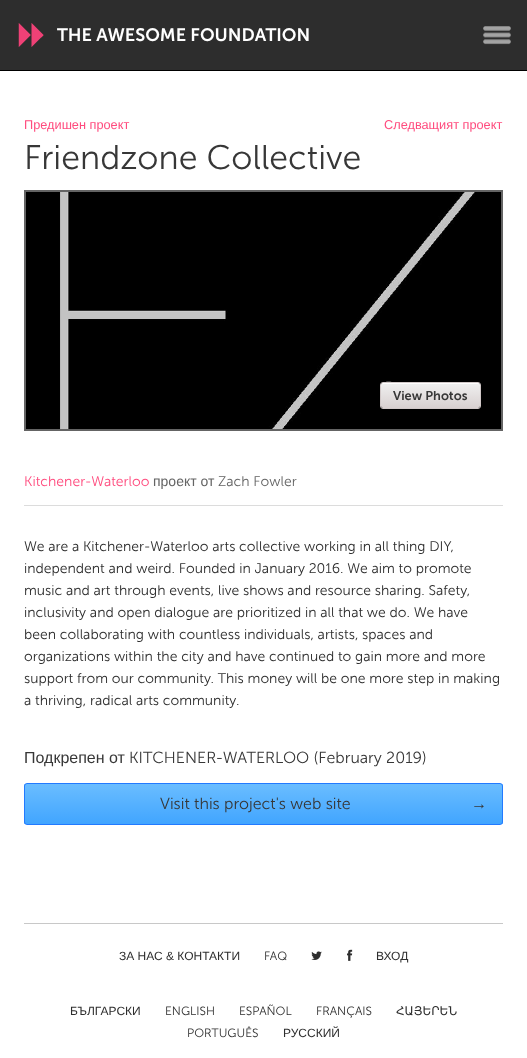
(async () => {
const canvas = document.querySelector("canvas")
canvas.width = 527
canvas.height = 1058
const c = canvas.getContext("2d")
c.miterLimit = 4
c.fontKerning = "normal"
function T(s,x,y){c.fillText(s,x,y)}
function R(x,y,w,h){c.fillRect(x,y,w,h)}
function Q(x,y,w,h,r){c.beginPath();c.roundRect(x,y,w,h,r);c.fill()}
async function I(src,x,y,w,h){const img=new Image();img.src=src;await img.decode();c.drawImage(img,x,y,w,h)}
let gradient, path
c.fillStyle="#fff"
R(0,0,527,1058)
c.fillStyle="#2d2d2d"
R(0,0,527,70)
c.fillStyle="#000"
R(0,70,527,1)
await I("1.png",18,23,26,24)
c.font="600 18px 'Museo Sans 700'"
c.fillStyle="#fff"
T("THE AWESOME FOUNDATION",57,41)
await I("2.png",483,26,28,19)
c.font="12.75px Liberation Sans"
c.fillStyle="#ff4b7e"
T("Предишен проект",24,129)
T("Следващият проект",384,129)
c.font="300 34px 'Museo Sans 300'"
c.fillStyle="#373737"
T("Friendzone Collective",24,169)
c.fillStyle="#646464"
R(24,190,479,241)
await I("3.png",26,192,475,237)
gradient = c.createLinearGradient(431,383,431,408)
gradient.addColorStop(0,"#f0f0f0")
gradient.addColorStop(1,"#d8d0d0")
c.fillStyle = gradient
Q(381,383,99,25,2)
c.fillStyle="#fff"
path = new Path2D("M383 384h95c1 0 2 1 2 2c0-1 0-3-2-3h-79c-2 0-18-4-18 3c0-1 1-2 2-2z")
c.fill(path)
c.beginPath()
c.roundRect(380.5,382.5,100,26,2.5)
c.strokeStyle="#d1c8c8"
c.stroke()
c.font="600 12.75px 'Museo Sans 700'"
c.fillStyle="#373737"
T("View Photos",393,400)
c.fillStyle="#dcdcdc"
R(24,505,479,1)
c.font="300 14px 'Museo Sans 300'"
c.fillStyle="#ff4b7e"
T("Kitchener-Waterloo",24,486)
c.font="14px Liberation Sans"
c.fillStyle="#646464"
T("проект от",153,486)
c.font="300 14px 'Museo Sans 300'"
T("Zach Fowler",218,486)
c.fillStyle="#2e2e2e"
T("We are a Kitchener-Waterloo arts collective working in all thing DIY,",24,551)
T("independent and weird. Founded in January 2016. We aim to promote",24,573)
T("music and art through events, live shows and resource sharing. Safety,",24,595)
T("inclusivity and open dialogue are prioritized in all that we do. We have",24,617)
T("been collaborating with countless individuals, artists, spaces and",24,639)
T("organizations within the city and have continued to gain more and more",24,661)
T("support from our community. This money will be one more step in making",24,683)
T("a thriving, radical arts community.",24,705)
c.font="16px Liberation Sans"
c.fillStyle="#373737"
T("Подкрепен от",24,763)
c.font="300 16px 'Museo Sans 300'"
T("KITCHENER-WATERLOO (February 2019)",129,763)
c.save()
c.beginPath()
c.roundRect(24,783,479,42,3)
c.clip()
gradient = c.createLinearGradient(264,784,264,824)
gradient.addColorStop(0,"#6abdff")
gradient.addColorStop(1,"#41a5ff")
c.fillStyle = gradient
R(24,784,479,40)
c.restore()
c.beginPath()
c.roundRect(24.5,783.5,478,41,2.5)
c.strokeStyle="#227aff"
c.stroke()
T("Visit this project's web site",160,809)
c.font="16px Liberation Sans"
T("→",471,809)
c.fillStyle="#c8c8c8"
R(24,923,479,1)
c.font="12px Liberation Sans"
c.fillStyle="#2e2e2e"
T("ЗА НАС & КОНТАКТИ",119,960)
c.font="300 12px 'Museo Sans 300'"
T("FAQ",264,960)
await I("4.png",311,951,11,9)
await I("5.png",347,949,6,12)
c.font="12px Liberation Sans"
T("ВХОД",376,960)
T("БЪЛГАРСКИ",70,1015)
c.font="300 12px 'Museo Sans 300'"
T("ENGLISH",165,1015)
T("ESPAÑOL",239,1015)
T("FRANÇAIS",316,1015)
c.font="12px DejaVu Sans"
T("ՀԱՅԵՐԵՆ",396,1015)
c.font="300 12px 'Museo Sans 300'"
T("PORTUGUÊS",187,1037)
c.font="12px Liberation Sans"
T("РУССКИЙ",283,1037)
})()
